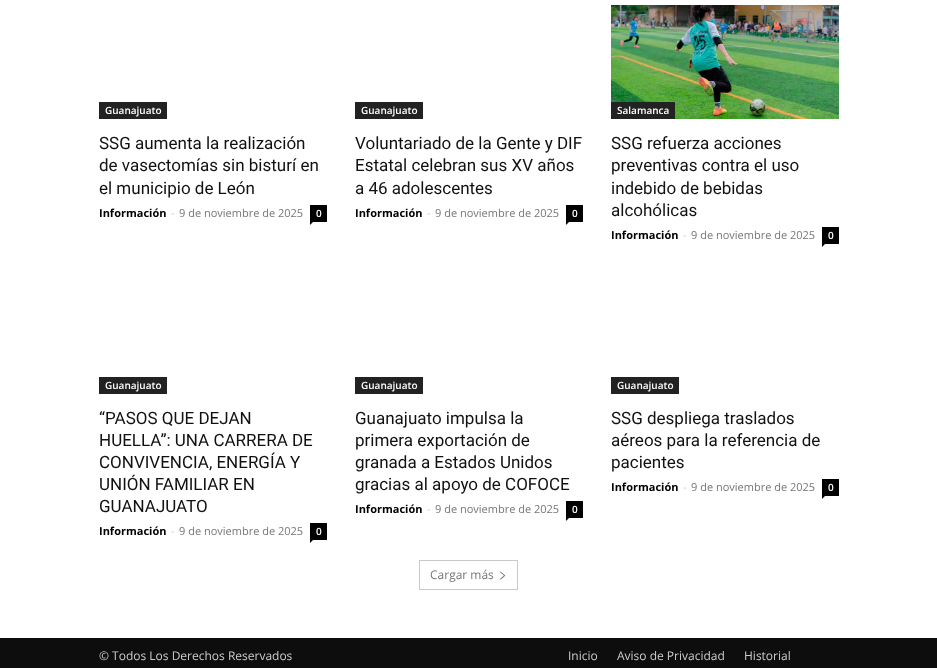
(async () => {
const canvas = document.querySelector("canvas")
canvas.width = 937
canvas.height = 668
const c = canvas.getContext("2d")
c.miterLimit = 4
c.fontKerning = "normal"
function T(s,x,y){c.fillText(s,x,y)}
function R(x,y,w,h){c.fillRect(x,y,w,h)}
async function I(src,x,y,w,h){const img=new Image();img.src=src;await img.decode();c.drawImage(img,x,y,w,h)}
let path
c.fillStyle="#fff"
R(0,0,937,668)
c.fillStyle="#222"
R(99,102,68,17)
c.font="600 10px Open Sans"
c.fillStyle="#fff"
T("Guanajuato",105,114)
c.font="17px Roboto"
c.fillStyle="#111"
T("SSG aumenta la realización",99,149)
T("de vasectomías sin bisturí en",99,171)
T("el municipio de León",99,194)
c.font="bold 11px Open Sans"
c.fillStyle="#000"
T("Información",99,217)
c.font="11px Open Sans"
c.fillStyle="#ccc"
T("-",171,217)
c.fillStyle="#767676"
T("9 de noviembre de 2025",179,217)
c.fillStyle="#000"
R(310,205,17,17)
c.font="600 10px Open Sans"
c.fillStyle="#fff"
T("0",316,217)
c.fillStyle="#000"
path = new Path2D("M310 222h3l-3 3z")
c.fill(path)
c.fillStyle="#222"
R(355,102,68,17)
c.fillStyle="#fff"
T("Guanajuato",361,114)
c.font="17px Roboto"
c.fillStyle="#111"
T("Voluntariado de la Gente y DIF",355,149)
T("Estatal celebran sus XV años",355,171)
T("a 46 adolescentes",355,194)
c.font="bold 11px Open Sans"
c.fillStyle="#000"
T("Información",355,217)
c.font="11px Open Sans"
c.fillStyle="#ccc"
T("-",427,217)
c.fillStyle="#767676"
T("9 de noviembre de 2025",435,217)
c.fillStyle="#000"
R(566,205,17,17)
c.font="600 10px Open Sans"
c.fillStyle="#fff"
T("0",572,217)
c.fillStyle="#000"
path = new Path2D("M566 222h3l-3 3z")
c.fill(path)
await I("1.png",611,5,228,114)
c.fillStyle="#222"
R(611,102,64,17)
c.fillStyle="#fff"
T("Salamanca",617,114)
c.font="17px Roboto"
c.fillStyle="#111"
T("SSG refuerza acciones",611,149)
T("preventivas contra el uso",611,171)
T("indebido de bebidas",611,194)
T("alcohólicas",611,216)
c.font="bold 11px Open Sans"
c.fillStyle="#000"
T("Información",611,239)
c.font="11px Open Sans"
c.fillStyle="#ccc"
T("-",683,239)
c.fillStyle="#767676"
T("9 de noviembre de 2025",691,239)
c.fillStyle="#000"
R(822,227,17,17)
c.font="600 10px Open Sans"
c.fillStyle="#fff"
T("0",828,239)
c.fillStyle="#000"
path = new Path2D("M822 244h3l-3 3z")
c.fill(path)
c.fillStyle="#222"
R(99,377,68,17)
c.fillStyle="#fff"
T("Guanajuato",105,389)
c.font="17px Roboto"
c.fillStyle="#111"
T("“PASOS QUE DEJAN",99,424)
T("HUELLA”: UNA CARRERA DE",99,446)
T("CONVIVENCIA, ENERGÍA Y",99,468)
T("UNIÓN FAMILIAR EN",99,490)
T("GUANAJUATO",99,512)
c.font="bold 11px Open Sans"
c.fillStyle="#000"
T("Información",99,535)
c.font="11px Open Sans"
c.fillStyle="#ccc"
T("-",171,535)
c.fillStyle="#767676"
T("9 de noviembre de 2025",179,535)
c.fillStyle="#000"
R(310,523,17,17)
c.font="600 10px Open Sans"
c.fillStyle="#fff"
T("0",316,535)
c.fillStyle="#000"
path = new Path2D("M310 540h3l-3 3z")
c.fill(path)
c.fillStyle="#222"
R(355,377,68,17)
c.fillStyle="#fff"
T("Guanajuato",361,389)
c.font="17px Roboto"
c.fillStyle="#111"
T("Guanajuato impulsa la",355,424)
T("primera exportación de",355,446)
T("granada a Estados Unidos",355,468)
T("gracias al apoyo de COFOCE",355,490)
c.font="bold 11px Open Sans"
c.fillStyle="#000"
T("Información",355,513)
c.font="11px Open Sans"
c.fillStyle="#ccc"
T("-",427,513)
c.fillStyle="#767676"
T("9 de noviembre de 2025",435,513)
c.fillStyle="#000"
R(566,501,17,17)
c.font="600 10px Open Sans"
c.fillStyle="#fff"
T("0",572,513)
c.fillStyle="#000"
path = new Path2D("M566 518h3l-3 3z")
c.fill(path)
c.fillStyle="#222"
R(611,377,68,17)
c.fillStyle="#fff"
T("Guanajuato",617,389)
c.font="17px Roboto"
c.fillStyle="#111"
T("SSG despliega traslados",611,424)
T("aéreos para la referencia de",611,446)
T("pacientes",611,468)
c.font="bold 11px Open Sans"
c.fillStyle="#000"
T("Información",611,491)
c.font="11px Open Sans"
c.fillStyle="#ccc"
T("-",683,491)
c.fillStyle="#767676"
T("9 de noviembre de 2025",691,491)
c.fillStyle="#000"
R(822,479,17,17)
c.font="600 10px Open Sans"
c.fillStyle="#fff"
T("0",828,491)
c.fillStyle="#000"
path = new Path2D("M822 496h3l-3 3z")
c.fill(path)
c.strokeStyle="#c9c9c9"
c.strokeRect(419.5,560.5,98,29)
c.font="12px Open Sans"
c.fillStyle="#767676"
T("Cargar más",430,579)
await I("2.png",500,571,6,9)
c.fillStyle="#0d0d0d"
R(0,638,937,30)
c.fillStyle="#ccc"
T("© Todos Los Derechos Reservados",99,660)
T("Inicio",568,660)
T("Aviso de Privacidad",617,660)
T("Historial",744,660)
})()
